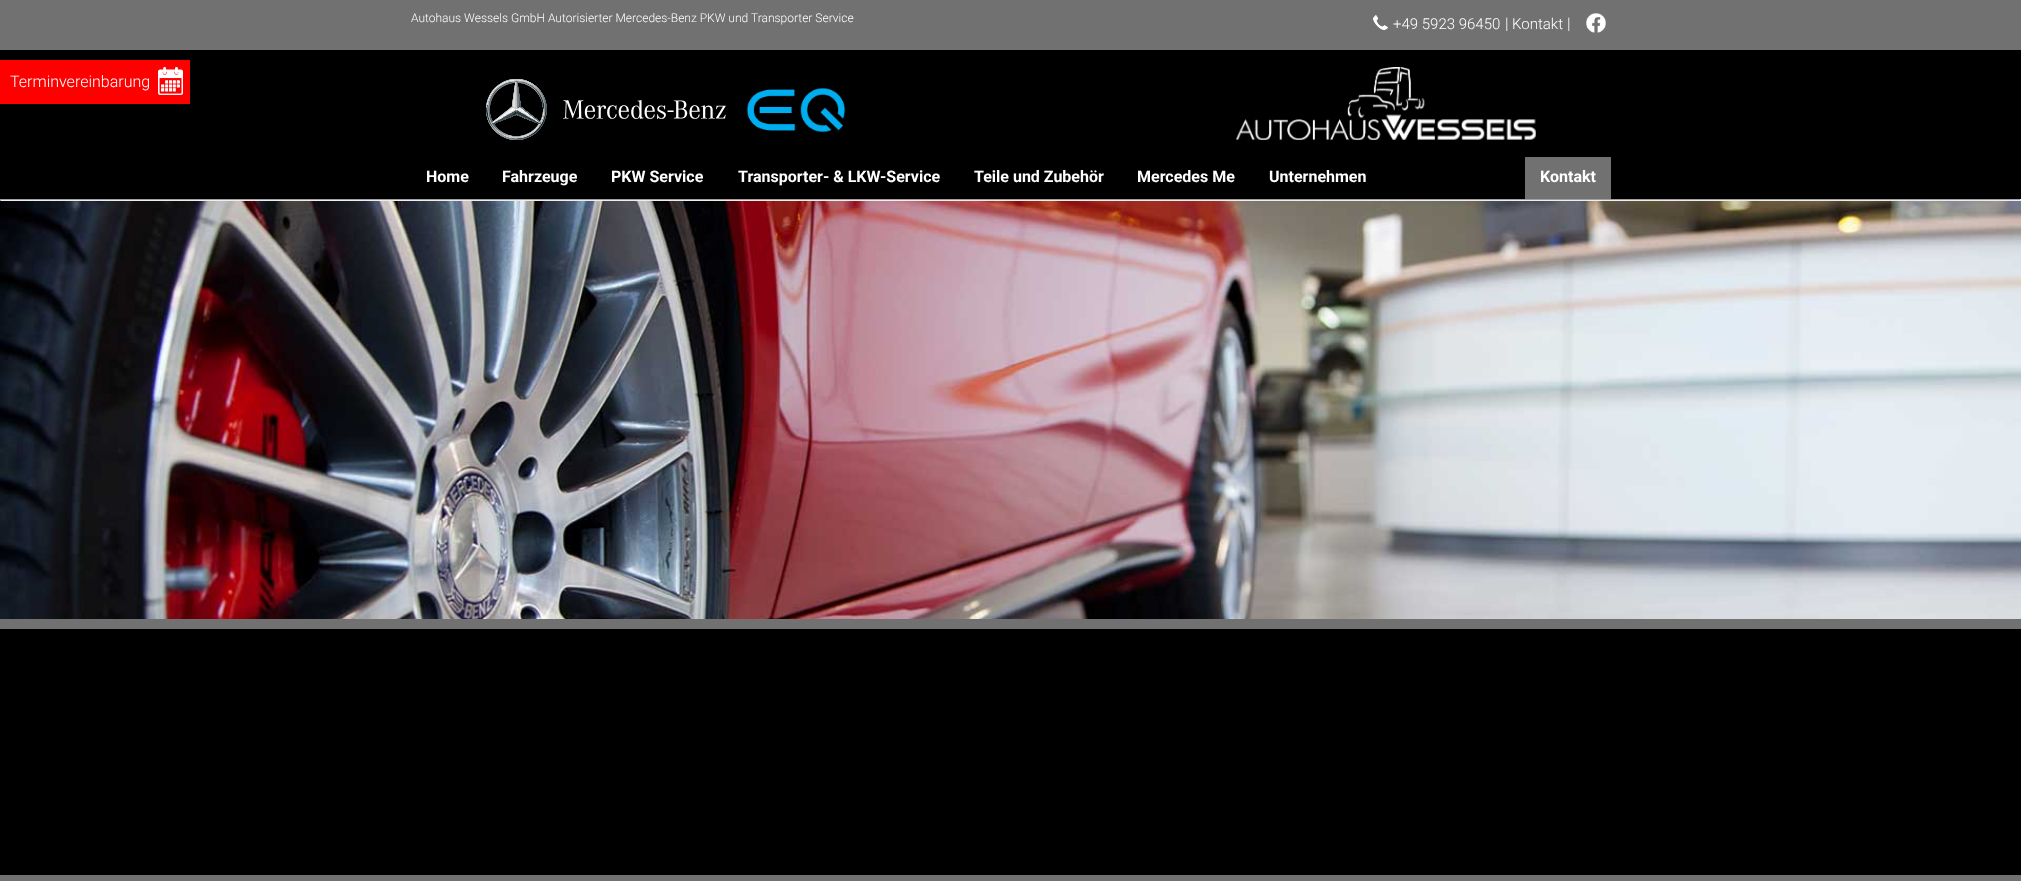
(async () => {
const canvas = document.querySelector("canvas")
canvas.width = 2021
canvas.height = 881
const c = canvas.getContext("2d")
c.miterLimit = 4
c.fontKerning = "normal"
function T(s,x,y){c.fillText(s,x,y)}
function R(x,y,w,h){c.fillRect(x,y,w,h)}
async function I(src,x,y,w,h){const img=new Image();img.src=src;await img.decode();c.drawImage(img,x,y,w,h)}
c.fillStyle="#000"
R(0,0,2021,881)
c.fillStyle="#717171"
R(0,0,2021,50)
c.font="300 12px Roboto"
c.fillStyle="#fff"
T("Autohaus Wessels GmbH Autorisierter Mercedes-Benz PKW und Transporter Service",411,22)
await I("1.png",1373,15,15,15)
c.font="300 15px Roboto"
T("+49 5923 96450",1393,29)
c.font="300 16px Roboto"
T("|",1505,29)
c.font="300 15px Roboto"
T("Kontakt",1512,29)
c.font="300 16px Roboto"
T("|",1567,29)
await I("2.png",1586,13,20,20)
c.fillStyle="#f00"
R(0,60,190,44)
c.fillStyle="#fff"
T("Terminvereinbarung",10,87)
await I("3.png",158,67,25,28)
await I("4.png",486,79,240,61)
await I("5.png",746,87,100,46)
await I("6.png",1236,67,300,73)
c.font="bold 16px Roboto"
T("Home",426,182)
T("Fahrzeuge",502,182)
T("PKW Service",611,182)
T("Transporter- & LKW-Service",738,182)
T("Teile und Zubehör",974,182)
T("Mercedes Me",1137,182)
T("Unternehmen",1269,182)
c.fillStyle="#717171"
R(1525,157,86,42)
c.fillStyle="#fff"
T("Kontakt",1540,182)
c.fillStyle="#9f9f9f"
R(0,199,2021,1)
c.fillStyle="#eee"
R(2020,199,1,2)
R(0,200,2021,1)
c.fillStyle="#9f9f9f"
R(0,199,1,2)
c.fillStyle="#717171"
R(0,619,2021,10)
await I("7.png",0,201,2021,418)
R(0,875,2021,6)
})()
